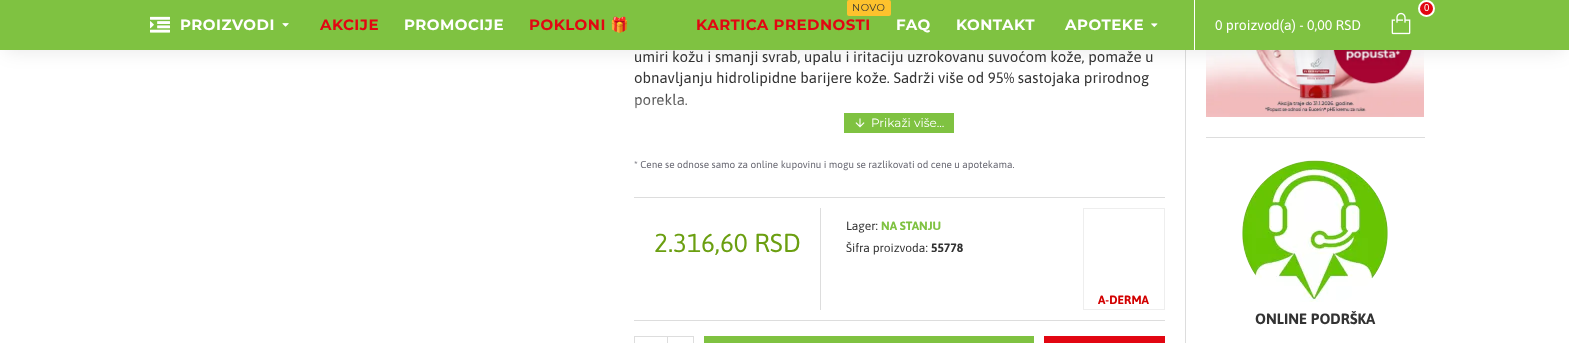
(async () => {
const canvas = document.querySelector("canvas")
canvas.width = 1569
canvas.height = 343
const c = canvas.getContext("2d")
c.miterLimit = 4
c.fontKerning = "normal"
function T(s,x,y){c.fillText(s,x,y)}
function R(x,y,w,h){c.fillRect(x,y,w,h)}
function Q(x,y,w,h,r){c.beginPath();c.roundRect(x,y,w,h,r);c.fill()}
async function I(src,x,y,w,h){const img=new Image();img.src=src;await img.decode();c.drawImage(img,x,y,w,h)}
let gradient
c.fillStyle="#fff"
R(0,0,1569,343)
c.fillStyle="#ddd"
R(1185,50,1,293)
await I("6.png",1206,50,218,67)
c.fillStyle="#0000001a"
c.filter="blur(10px)"
c.beginPath()
c.rect(5,10,1559,40)
c.fill()
c.filter="none"
c.fillStyle="#7fc241"
R(0,0,1569,50)
await I("1.png",150,16,20,17)
c.letterSpacing="0.5px"
c.font="bold 15px Montserrat"
c.fillStyle="#fff"
T("PROIZVODI",180,30)
await I("2.png",282,23,7,4)
c.fillStyle="#e20612"
T("AKCIJE",320,30)
c.fillStyle="#fff"
T("PROMOCIJE",404,30)
c.fillStyle="#e20612"
T("POKLONI",529,30)
c.font="bold 15px Noto Color Emoji"
T("🎁",610,30)
c.fillStyle="#fdc22d"
Q(847,0,44,16,2)
c.font="10px Montserrat"
c.fillStyle="#333"
T("NOVO",852,11)
c.font="bold 15px Montserrat"
c.fillStyle="#e20612"
T("KARTICA PREDNOSTI",696,30)
c.fillStyle="#fff"
T("FAQ",896,30)
T("KONTAKT",956,30)
T("APOTEKE",1065,30)
await I("3.png",1151,23,7,4)
R(1194,0,1,50)
c.fillStyle="#e20612"
c.beginPath()
c.arc(1426.5,8.5,7.5,0,7)
c.fill()
c.strokeStyle="#fff"
c.lineWidth=2
c.stroke()
c.letterSpacing="0px"
c.font="10px Asap"
c.fillStyle="#fff"
T("0",1424,11)
c.font="14px Asap"
T("0 proizvod(a) - 0,00 RSD",1215,30)
await I("4.png",1391,12,20,23)
c.font="15px Asap"
c.fillStyle="#333"
T("umiri kožu i smanji svrab, upalu i iritaciju uzrokovanu suvoćom kože, pomaže u",634,62)
T("obnavljanju hidrolipidne barijere kože. Sadrži više od 95% sastojaka prirodnog",634,83)
T("porekla.",634,105)
gradient = c.createLinearGradient(900,93,900,133)
gradient.addColorStop(0,"#ffffff00")
gradient.addColorStop(1,"#fff")
c.fillStyle = gradient
R(634,94,53,15)
c.fillStyle="#7fc241"
R(844,113,110,20)
await I("5.png",855,118,10,10)
c.font="12px Montserrat"
c.fillStyle="#fff"
T("Prikaži više...",871,127)
c.font="10px Asap"
c.fillStyle="#696973"
T("* Cene se odnose samo za online kupovinu i mogu se razlikovati od cene u apotekama.",634,168)
c.fillStyle="#ddd"
R(634,197,531,1)
R(634,320,531,1)
c.font="26px Asap"
c.fillStyle="#6b9f11"
T("2.316,60 RSD",654,252)
c.fillStyle="#ddd"
R(820,208,1,102)
c.font="12px Asap"
c.fillStyle="#333"
T("Lager:",846,230)
c.font="bold 12px Asap"
c.fillStyle="#7fc241"
T("NA STANJU",881,230)
c.font="12px Asap"
c.fillStyle="#333"
T("Šifra proizvoda:",846,252)
c.font="bold 12px Asap"
T("55778",931,252)
c.strokeStyle="#eee"
c.lineWidth=1
c.strokeRect(1083.5,208.5,81,101)
c.fillStyle="#d20000"
T("A-DERMA",1098,304)
c.strokeStyle="#ddd"
c.strokeRect(634.5,336.5,59,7)
c.fillStyle="#ddd"
R(667,337,1,6)
c.fillStyle="#7fc241"
R(704,336,330,7)
c.fillStyle="#e20612"
R(1044,336,121,7)
c.fillStyle="#ddd"
R(1206,137,219,1)
await I("7.png",1242,160,146,142)
c.font="bold 15px Asap"
c.fillStyle="#333"
T("ONLINE PODRŠKA",1255,324)
})()
